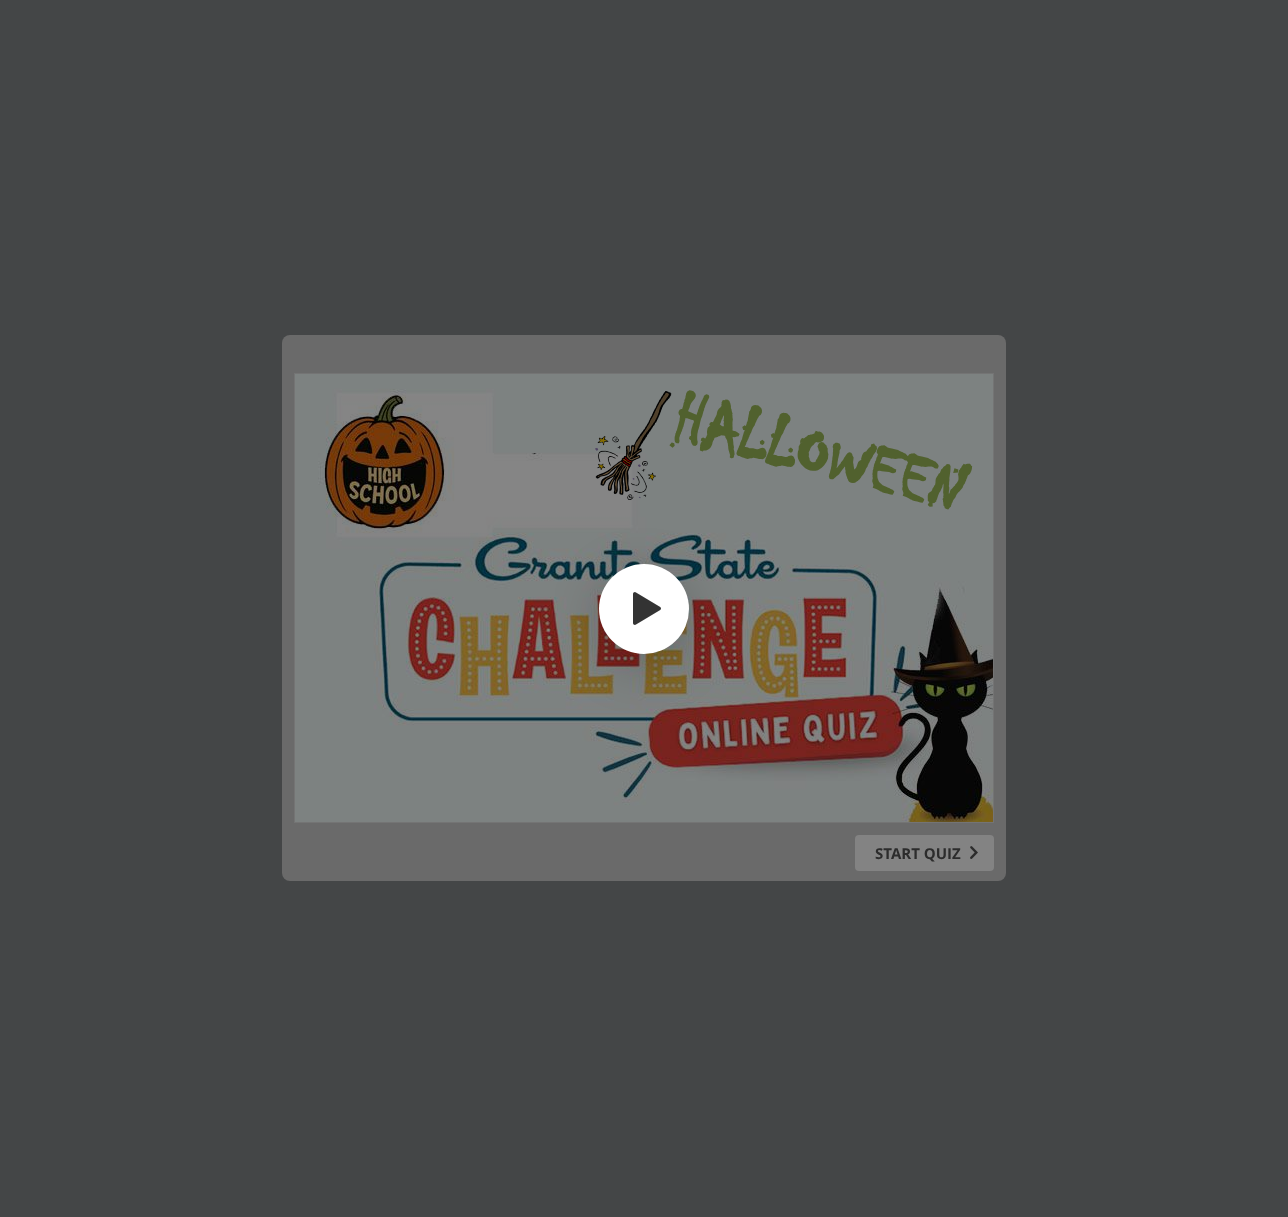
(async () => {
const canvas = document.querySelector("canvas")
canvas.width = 1288
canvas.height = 1217
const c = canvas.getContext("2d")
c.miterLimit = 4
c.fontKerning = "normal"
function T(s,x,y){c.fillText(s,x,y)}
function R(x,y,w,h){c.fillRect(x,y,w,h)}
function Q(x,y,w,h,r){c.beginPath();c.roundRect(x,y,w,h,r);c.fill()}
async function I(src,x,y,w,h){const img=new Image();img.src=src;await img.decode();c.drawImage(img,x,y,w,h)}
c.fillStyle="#444647"
R(0,0,1288,1217)
c.fillStyle="#6a6a6a"
Q(282,335,724,546,8)
await I("1.png",295,374,698,448)
c.font="bold 72px 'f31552'"
c.fillStyle="#51612e"
c.save()
c.translate(669,438)
c.rotate(15 * Math.PI / 180)
c.fillText("HALLOWEEN",0,0)
c.restore()
await I("2.png",595,391,77,109)
c.strokeStyle="#747474"
c.strokeRect(294.5,373.5,699,449)
c.fillStyle="#00000033"
c.filter="blur(25px)"
c.beginPath()
c.roundRect(599,576,90,90,45)
c.fill()
c.filter="none"
c.fillStyle="#fff"
c.beginPath()
c.arc(644,609,45,0,7)
c.fill()
await I("3.png",633,592,28,33)
c.fillStyle="#838383"
Q(855,835,139,36,4)
c.font="bold 15px 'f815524'"
c.fillStyle="#2c2c2c"
T("START QUIZ",875,859)
await I("4.png",970,846,8,13)
})()
